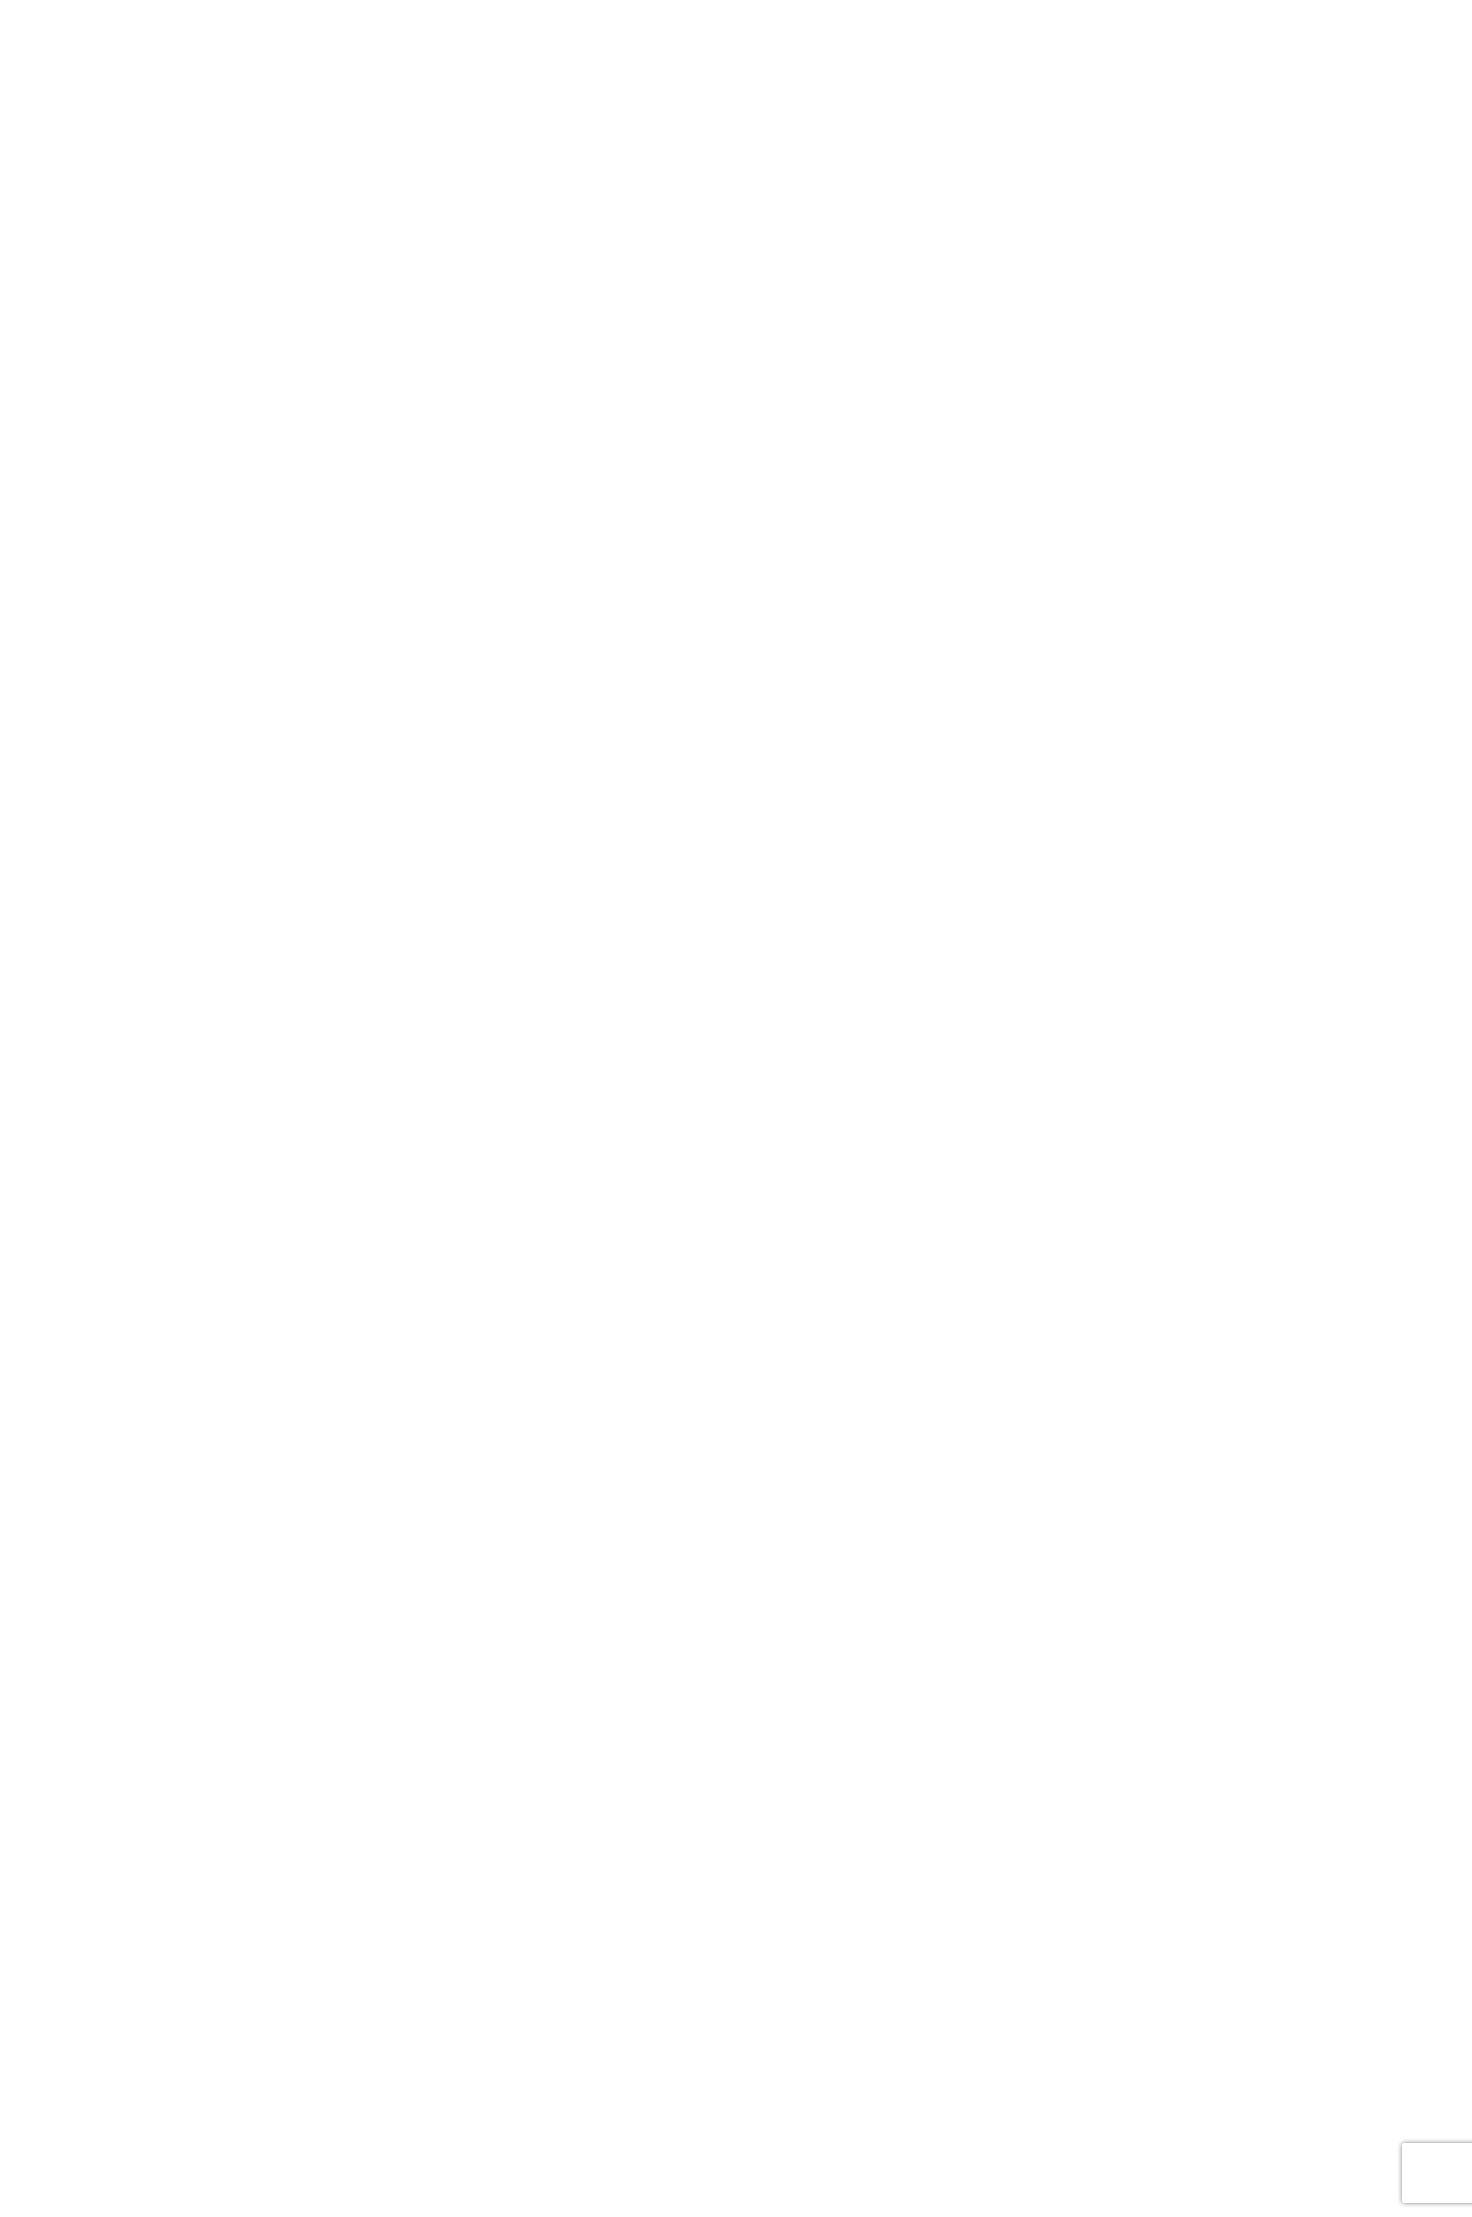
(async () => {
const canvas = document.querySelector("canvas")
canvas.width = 1472
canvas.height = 2217
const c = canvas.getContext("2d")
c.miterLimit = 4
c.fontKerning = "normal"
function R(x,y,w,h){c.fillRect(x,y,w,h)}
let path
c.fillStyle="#fff"
R(0,0,1472,2217)
c.save()
path = new Path2D("M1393 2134h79v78h-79zm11 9h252c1 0 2 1 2 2v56c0 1-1 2-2 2h-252c-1 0-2-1-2-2v-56c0-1 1-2 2-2z")
c.clip(path,"evenodd")
c.fillStyle="#808080"
c.filter="blur(2.5px)"
c.beginPath()
c.roundRect(1402,2143,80,60,2)
c.fill()
c.filter="none"
c.restore()
})()
